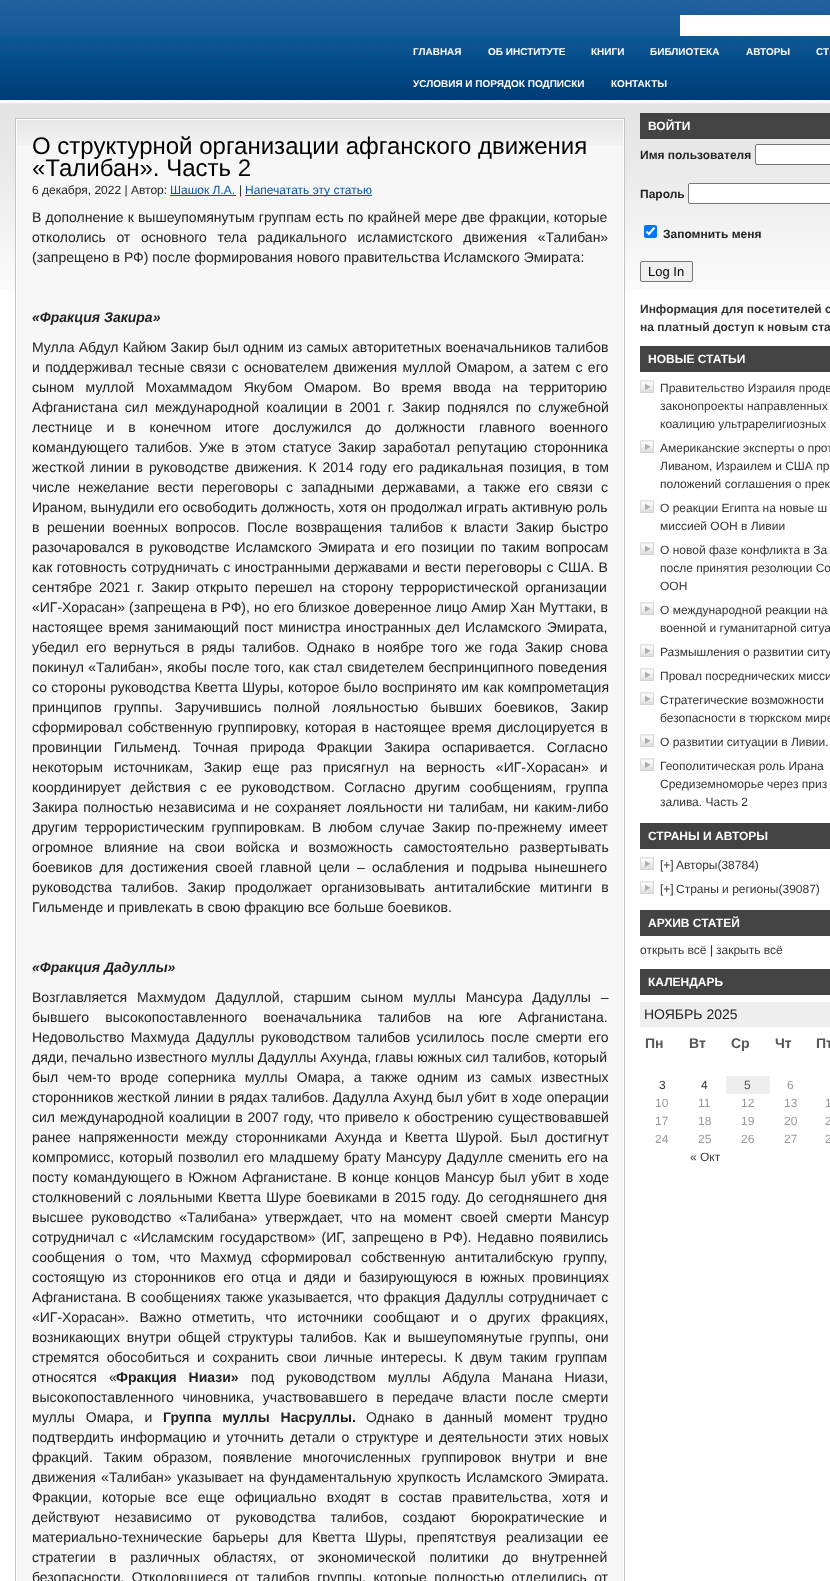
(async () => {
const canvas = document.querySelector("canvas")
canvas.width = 830
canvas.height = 1581
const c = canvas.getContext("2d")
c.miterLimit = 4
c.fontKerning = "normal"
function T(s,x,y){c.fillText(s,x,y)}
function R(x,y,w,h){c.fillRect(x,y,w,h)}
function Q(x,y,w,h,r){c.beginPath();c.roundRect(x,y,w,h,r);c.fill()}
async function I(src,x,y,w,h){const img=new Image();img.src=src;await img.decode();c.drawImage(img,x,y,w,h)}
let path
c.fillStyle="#fff"
R(0,0,830,1581)
await I("1.png",0,0,830,100)
R(680,15,150,21)
c.font="bold 10px Liberation Sans"
T("ГЛАВНАЯ",413,55)
T("ОБ ИНСТИТУТЕ",488,55)
T("КНИГИ",591,55)
T("БИБЛИОТЕКА",650,55)
T("АВТОРЫ",746,55)
T("СТ",816,55)
T("УСЛОВИЯ И ПОРЯДОК ПОДПИСКИ",413,87)
T("КОНТАКТЫ",611,87)
await I("2.png",0,103,830,187)
c.fillStyle="#f7f7f7"
R(17,145,606,1436)
c.strokeStyle="#c4c4c4"
c.strokeRect(15.5,118.5,609,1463)
await I("3.png",17,120,606,25)
c.strokeStyle="#fff"
c.strokeRect(16.5,119.5,607,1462)
c.font="24px Liberation Sans"
c.fillStyle="#000"
T("О структурной организации афганского движения",32,154)
T("«Талибан». Часть 2",32,176)
c.font="12px Liberation Sans"
c.fillStyle="#222"
T("6 декабря, 2022 | Автор:",32,194)
c.fillStyle="#0956a8"
T("Шашок Л.А.",170,194)
R(170,195,66,1)
c.fillStyle="#222"
T("|",239,194)
c.fillStyle="#0956a8"
R(245,195,127,1)
T("Напечатать эту статью",245,194)
c.wordSpacing="0.25px"
c.font="14px Liberation Sans"
c.fillStyle="#222"
T("В дополнение к вышеупомянутым группам есть по крайней мере две фракции, которые",32,222)
c.wordSpacing="6.75px"
T("откололись от основного тела радикального исламистского движения «Талибан»",32,242)
c.wordSpacing="0px"
T("(запрещено в РФ) после формирования нового правительства Исламского Эмирата:",32,262)
c.font="italic bold 14px Liberation Sans"
T("«Фракция Закира»",32,322)
c.wordSpacing="0.25px"
c.font="14px Liberation Sans"
T("Мулла Абдул Кайюм Закир был одним из самых авторитетных военачальников талибов",32,352)
c.wordSpacing="1.5px"
T("и поддерживал тесные связи с основателем движения муллой Омаром, а затем с его",32,372)
c.wordSpacing="7.5px"
T("сыном муллой Мохаммадом Якубом Омаром. Во время ввода на территорию",32,392)
c.wordSpacing="3.25px"
T("Афганистана сил международной коалиции в 2001 г. Закир поднялся по служебной",32,412)
c.wordSpacing="10px"
T("лестнице и в конечном итоге дослужился до должности главного военного",32,432)
c.wordSpacing="2.75px"
T("командующего талибов. Уже в этом статусе Закир заработал репутацию сторонника",32,452)
c.wordSpacing="2px"
T("жесткой линии в руководстве движения. К 2014 году его радикальная позиция, в том",32,472)
c.wordSpacing="4.1px"
T("числе нежелание вести переговоры с западными державами, а также его связи с",32,492)
c.wordSpacing="0px"
T("Ираном, вынудили его освободить должность, хотя он продолжал играть активную роль",32,512)
c.wordSpacing="3.6px"
T("в решении военных вопросов. После возвращения талибов к власти Закир быстро",32,532)
c.wordSpacing="2.25px"
T("разочаровался в руководстве Исламского Эмирата и его позиции по таким вопросам",32,552)
c.wordSpacing="0.6px"
T("как готовность сотрудничать с иностранными державами и вести переговоры с США. В",32,572)
c.wordSpacing="3px"
T("сентябре 2021 г. Закир открыто перешел на сторону террористической организации",32,592)
c.wordSpacing="0.25px"
T("«ИГ-Хорасан» (запрещена в РФ), но его близкое доверенное лицо Амир Хан Муттаки, в",32,612)
c.wordSpacing="1.5px"
T("настоящее время занимающий пост министра иностранных дел Исламского Эмирата,",32,632)
c.wordSpacing="3.4px"
T("убедил его вернуться в ряды талибов. Однако в ноябре того же года Закир снова",32,652)
c.wordSpacing="0.5px"
T("покинул «Талибан», якобы после того, как стал свидетелем беспринципного поведения",32,672)
T("со стороны руководства Кветта Шуры, которое было воспринято им как компрометация",32,692)
c.wordSpacing="8.25px"
T("принципов группы. Заручившись полной лояльностью бывших боевиков, Закир",32,712)
c.wordSpacing="1.75px"
T("сформировал собственную группировку, которая в настоящее время дислоцируется в",32,732)
c.wordSpacing="8px"
T("провинции Гильменд. Точная природа Фракции Закира оспаривается. Согласно",32,752)
c.wordSpacing="7px"
T("некоторым источникам, Закир еще раз присягнул на верность «ИГ-Хорасан» и",32,772)
c.wordSpacing="5.5px"
T("координирует действия с ее руководством. Согласно другим сообщениям, группа",32,792)
c.wordSpacing="1.5px"
T("Закира полностью независима и не сохраняет лояльности ни талибам, ни каким-либо",32,812)
c.wordSpacing="3.25px"
T("другим террористическим группировкам. В любом случае Закир по-прежнему имеет",32,832)
c.wordSpacing="6.75px"
T("огромное влияние на свои войска и возможность самостоятельно развертывать",32,852)
c.wordSpacing="3.25px"
T("боевиков для достижения своей главной цели – ослабления и подрыва нынешнего",32,872)
c.wordSpacing="5.25px"
T("руководства талибов. Закир продолжает организовывать антиталибские митинги в",32,892)
c.wordSpacing="0px"
T("Гильменде и привлекать в свою фракцию все больше боевиков.",32,912)
c.font="italic bold 14px Liberation Sans"
T("«Фракция Дадуллы»",32,972)
c.wordSpacing="6px"
c.font="14px Liberation Sans"
T("Возглавляется Махмудом Дадуллой, старшим сыном муллы Мансура Дадуллы –",32,1002)
c.wordSpacing="12.25px"
T("бывшего высокопоставленного военачальника талибов на юге Афганистана.",32,1022)
c.wordSpacing="2.5px"
T("Недовольство Махмуда Дадуллы руководством талибов усилилось после смерти его",32,1042)
c.wordSpacing="0px"
T("дяди, печально известного муллы Дадуллы Ахунда, главы южных сил талибов, который",32,1062)
c.wordSpacing="5.25px"
T("был чем-то вроде соперника муллы Омара, а также одним из самых известных",32,1082)
c.wordSpacing="0.25px"
T("сторонников жесткой линии в рядах талибов. Дадулла Ахунд был убит в ходе операции",32,1102)
c.wordSpacing="1px"
T("сил международной коалиции в 2007 году, что привело к обострению существовавшей",32,1122)
c.wordSpacing="3.75px"
T("ранее напряженности между сторонниками Ахунда и Кветта Шурой. Был достигнут",32,1142)
c.wordSpacing="1.25px"
T("компромисс, который позволил его младшему брату Мансуру Дадулле сменить его на",32,1162)
c.wordSpacing="1.5px"
T("посту командующего в Южном Афганистане. В конце концов Мансур был убит в ходе",32,1182)
c.wordSpacing="1.25px"
T("столкновений с лояльными Кветта Шуре боевиками в 2015 году. До сегодняшнего дня",32,1202)
c.wordSpacing="4px"
T("высшее руководство «Талибана» утверждает, что на момент своей смерти Мансур",32,1222)
c.wordSpacing="2px"
T("сотрудничал с «Исламским государством» (ИГ, запрещено в РФ). Недавно появились",32,1242)
c.wordSpacing="5.75px"
T("сообщения о том, что Махмуд сформировал собственную антиталибскую группу,",32,1262)
c.wordSpacing="3.75px"
T("состоящую из сторонников его отца и дяди и базирующуюся в южных провинциях",32,1282)
c.wordSpacing="1px"
T("Афганистана. В сообщениях также указывается, что фракция Дадуллы сотрудничает с",32,1302)
c.wordSpacing="6.75px"
T("«ИГ-Хорасан». Важно отметить, что источники сообщают и о других фракциях,",32,1322)
c.wordSpacing="3px"
T("возникающих внутри общей структуры талибов. Как и вышеупомянутые группы, они",32,1342)
c.wordSpacing="3.75px"
T("стремятся обособиться и сохранить свои личные интересы. К двум таким группам",32,1362)
c.wordSpacing="0px"
T("относятся",32,1382)
T("«",109,1382)
c.wordSpacing="8px"
c.font="bold 14px Liberation Sans"
T("Фракция Ниази»",116,1382)
c.font="14px Liberation Sans"
T("под руководством муллы Абдула Манана Ниази,",251,1382)
c.wordSpacing="4.75px"
T("высокопоставленного чиновника, участвовавшего в передаче власти после смерти",32,1402)
c.wordSpacing="7px"
T("муллы Омара, и",32,1422)
c.font="bold 14px Liberation Sans"
T("Группа муллы Насруллы.",163,1422)
c.font="14px Liberation Sans"
T("Однако в данный момент трудно",366,1422)
c.wordSpacing="2.25px"
T("подтвердить информацию и уточнить детали о структуре и деятельности этих новых",32,1442)
c.wordSpacing="6.75px"
T("фракций. Таким образом, появление многочисленных группировок внутри и вне",32,1462)
c.wordSpacing="1.5px"
T("движения «Талибан» указывает на фундаментальную хрупкость Исламского Эмирата.",32,1482)
c.wordSpacing="6.25px"
T("Фракции, которые все еще официально входят в состав правительства, хотя и",32,1502)
c.wordSpacing="11px"
T("действуют независимо от руководства талибов, создают бюрократические и",32,1522)
c.wordSpacing="6px"
T("материально-технические барьеры для Кветта Шуры, препятствуя реализации ее",32,1542)
c.wordSpacing="9.75px"
T("стратегии в различных областях, от экономической политики до внутренней",32,1562)
c.wordSpacing="3.5px"
T("безопасности. Отколовшиеся от талибов группы, которые полностью отделились от",32,1582)
c.fillStyle="#444343"
R(640,113,190,26)
c.wordSpacing="0px"
c.font="bold 12px Liberation Sans"
c.fillStyle="#fff"
T("ВОЙТИ",648,130)
c.fillStyle="#222"
T("Имя пользователя",640,159)
c.fillStyle="#fff"
c.beginPath()
c.roundRect(755.5,144.5,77,20,1.5)
c.fill()
c.strokeStyle="#767676"
c.stroke()
c.fillStyle="#222"
T("Пароль",640,198)
c.fillStyle="#fff"
c.beginPath()
c.roundRect(688.5,183.5,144,20,1.5)
c.fill()
c.stroke()
c.fillStyle="#0075ff"
Q(644,225,13,13,2)
path = new Path2D("M646.5 231.5l2.5 2.5l5.5-6.5")
c.strokeStyle="#fff"
c.lineWidth=2.1
c.stroke(path)
c.fillStyle="#222"
T("Запомнить меня",663,238)
c.fillStyle="#efefef"
c.beginPath()
c.roundRect(640.5,261.5,52,20,1.5)
c.fill()
c.strokeStyle="#767676"
c.lineWidth=1
c.stroke()
c.font="13px Liberation Sans"
c.fillStyle="#000"
T("Log In",648,276)
c.font="bold 12px Liberation Sans"
c.fillStyle="#333"
T("Информация для посетителей с",640,313)
T("на платный доступ к новым ста",640,331)
c.fillStyle="#444343"
R(640,346,190,26)
c.fillStyle="#fff"
T("НОВЫЕ СТАТЬИ",648,363)
await I("4.png",640,380,14,13)
c.font="12px Liberation Sans"
c.fillStyle="#333"
T("Правительство Израиля продв",660,392)
T("законопроекты направленных",660,410)
T("коалицию ультрарелигиозных",660,428)
await I("4.png",640,440,14,13)
T("Американские эксперты о прот",660,452)
T("Ливаном, Израилем и США пр",660,470)
T("положений соглашения о прек",660,488)
await I("4.png",640,500,14,13)
T("О реакции Египта на новые ш",660,512)
T("миссией ООН в Ливии",660,530)
await I("4.png",640,542,14,13)
T("О новой фазе конфликта в За",660,554)
T("после принятия резолюции Со",660,572)
T("ООН",660,590)
await I("4.png",640,602,14,13)
T("О международной реакции на",660,614)
T("военной и гуманитарной ситуа",660,632)
await I("4.png",640,644,14,13)
T("Размышления о развитии ситу",660,656)
await I("4.png",640,668,14,13)
T("Провал посреднических мисси",660,680)
await I("4.png",640,692,14,13)
T("Стратегические возможности",660,704)
T("безопасности в тюркском мире",660,722)
await I("4.png",640,734,14,13)
T("О развитии ситуации в Ливии.",660,746)
await I("4.png",640,758,14,13)
T("Геополитическая роль Ирана",660,770)
T("Средиземноморье через приз",660,788)
T("залива. Часть 2",660,806)
c.fillStyle="#444343"
R(640,823,190,26)
c.font="bold 12px Liberation Sans"
c.fillStyle="#fff"
T("СТРАНЫ И АВТОРЫ",648,840)
await I("4.png",640,857,14,13)
c.font="12px Liberation Sans"
c.fillStyle="#333"
T("[+]",660,869)
T("Авторы(38784)",676,869)
await I("4.png",640,881,14,13)
T("[+]",660,893)
T("Страны и регионы(39087)",676,893)
c.fillStyle="#444343"
R(640,910,190,26)
c.font="bold 12px Liberation Sans"
c.fillStyle="#fff"
T("АРХИВ СТАТЕЙ",648,927)
c.font="12px Liberation Sans"
c.fillStyle="#333"
T("открыть всё",640,954)
c.fillStyle="#222"
T("|",710,954)
c.fillStyle="#333"
T("закрыть всё",716,954)
c.fillStyle="#444343"
R(640,969,190,26)
c.font="bold 12px Liberation Sans"
c.fillStyle="#fff"
T("КАЛЕНДАРЬ",648,986)
c.fillStyle="#eee"
R(640,1002,190,25)
c.font="14px Liberation Sans"
c.fillStyle="#222"
T("НОЯБРЬ 2025",644,1019)
c.font="bold 14px Liberation Sans"
c.fillStyle="#555"
T("Пн",645,1048)
T("Вт",689,1048)
T("Ср",731,1048)
T("Чт",775,1048)
T("Пт",816,1048)
c.font="12px Liberation Sans"
c.fillStyle="#333"
T("3",659,1089)
T("4",701,1089)
c.fillStyle="#eee"
R(726,1076,44,18)
c.fillStyle="#555"
T("5",744,1089)
c.fillStyle="#999"
T("6",787,1089)
T("10",655,1107)
T("11",698,1107)
T("12",741,1107)
T("13",784,1107)
T("1",825,1107)
T("17",655,1125)
T("18",698,1125)
T("19",741,1125)
T("20",784,1125)
T("2",825,1125)
T("24",655,1143)
T("25",698,1143)
T("26",741,1143)
T("27",784,1143)
T("2",825,1143)
c.fillStyle="#333"
T("« Окт",690,1161)
})()
